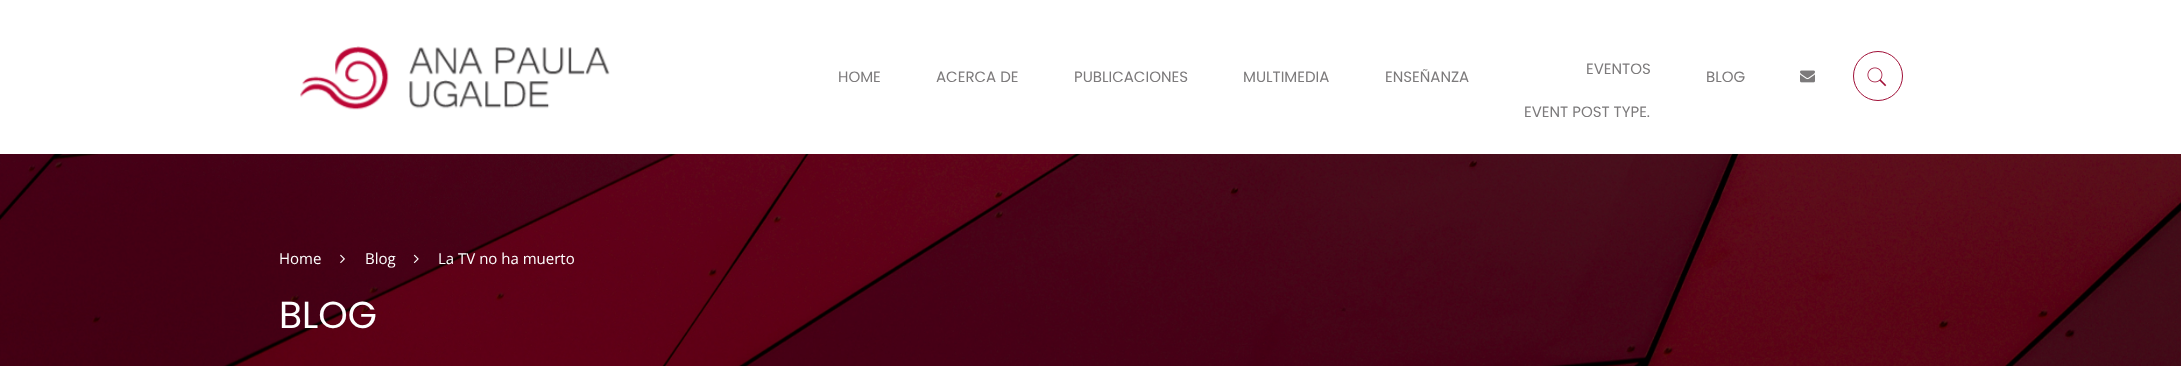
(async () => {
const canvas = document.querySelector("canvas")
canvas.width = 2181
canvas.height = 366
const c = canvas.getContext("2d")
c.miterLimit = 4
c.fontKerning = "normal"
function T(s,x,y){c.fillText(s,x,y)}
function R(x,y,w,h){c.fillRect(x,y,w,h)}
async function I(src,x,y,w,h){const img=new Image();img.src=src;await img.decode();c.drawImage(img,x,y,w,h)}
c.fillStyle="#fff"
R(0,0,2181,366)
await I("1.png",300,46,310,64)
c.font="15px Poppins"
c.fillStyle="#7c7a7b"
T("HOME",838,82)
T("ACERCA DE",936,82)
T("PUBLICACIONES",1074,82)
T("MULTIMEDIA",1243,82)
T("ENSEÑANZA",1385,82)
T("EVENTOS",1586,74)
T("EVENT POST TYPE.",1524,117)
T("BLOG",1706,82)
await I("2.png",1800,70,15,13)
c.beginPath()
c.arc(1878,76,24.5,0,7)
c.strokeStyle="#a00f37"
c.stroke()
await I("3.png",1867,67,20,20)
await I("4.png",0,154,2181,212)
c.font="15px Open Sans"
c.fillStyle="#fff"
T("Home",279,264)
await I("5.png",340,254,5,10)
T("Blog",365,264)
await I("6.png",413,254,6,10)
T("La TV no ha muerto",438,264)
c.font="37.5px Poppins"
T("BLOG",279,328)
})()
